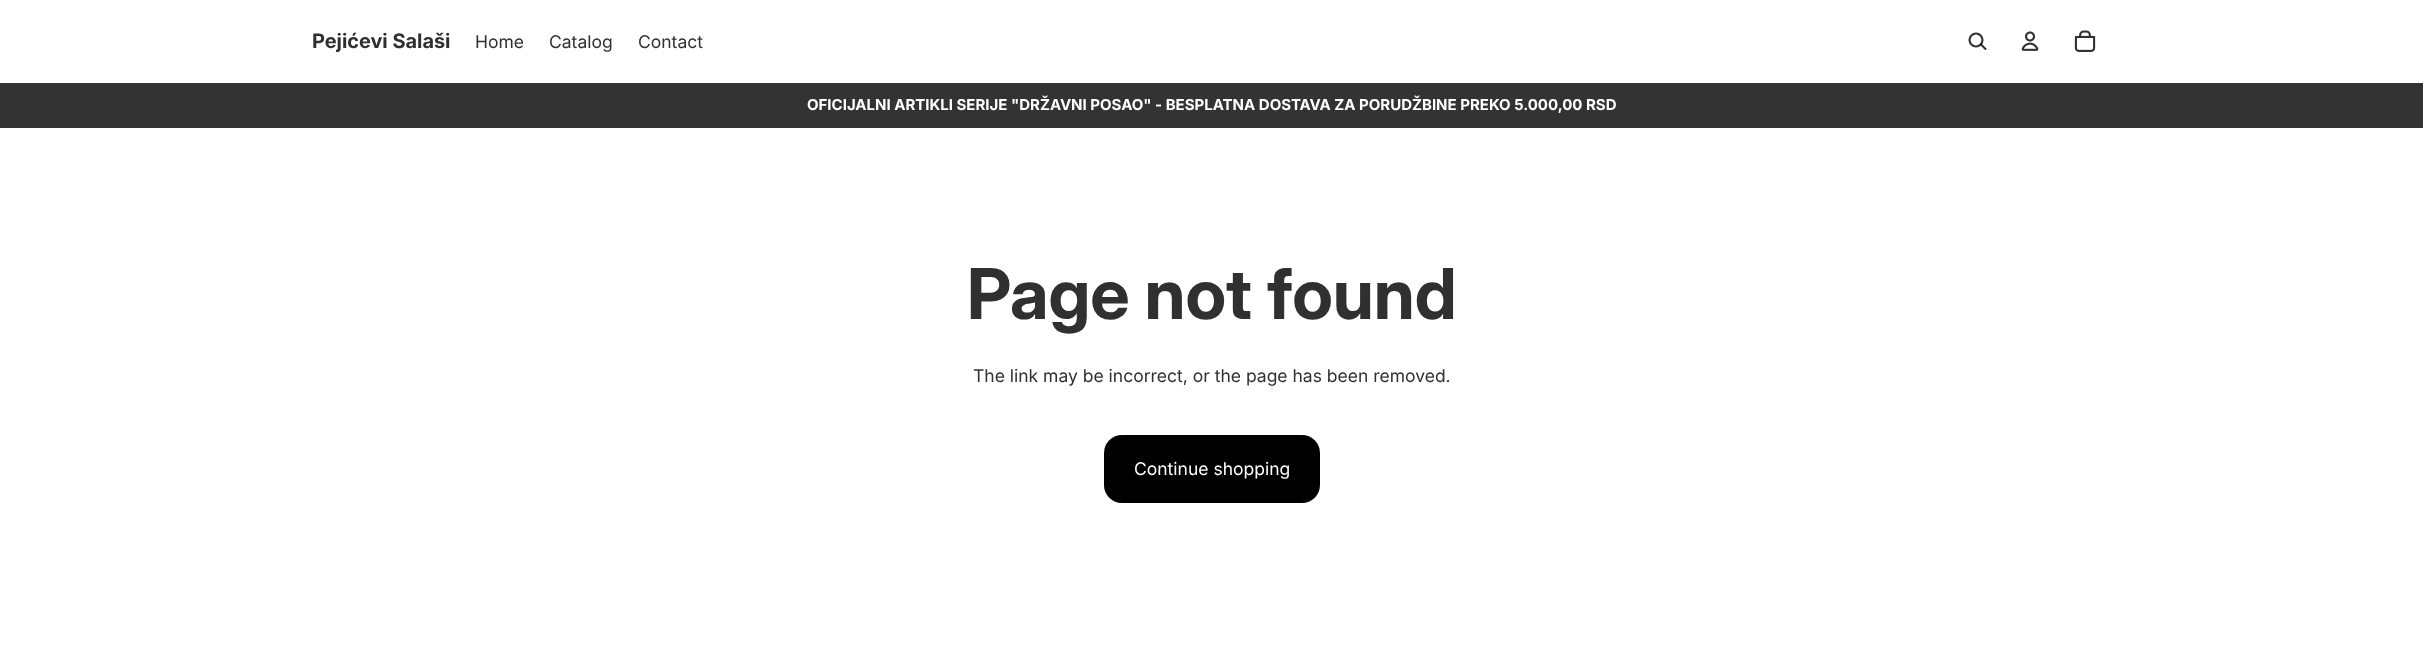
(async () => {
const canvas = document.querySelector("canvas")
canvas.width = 2423
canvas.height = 659
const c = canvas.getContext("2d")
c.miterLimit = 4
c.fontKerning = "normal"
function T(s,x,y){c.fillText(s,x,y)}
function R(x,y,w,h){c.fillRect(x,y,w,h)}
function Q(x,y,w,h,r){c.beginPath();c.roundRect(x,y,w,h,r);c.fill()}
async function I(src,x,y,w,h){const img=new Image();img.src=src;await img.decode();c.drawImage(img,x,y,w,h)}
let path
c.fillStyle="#fff"
R(0,0,2423,659)
c.font="bold 20px 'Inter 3'"
c.fillStyle="#303030"
T("Pejićevi Salaši",312,48)
c.font="17.5px Inter"
T("Home",475,48)
T("Catalog",549,48)
T("Contact",638,48)
c.beginPath()
c.arc(1976,40,6.5,0,7)
c.strokeStyle="#303030"
c.lineWidth=2.1
c.stroke()
path = new Path2D("M1981 44.5l4.5 4.5")
c.strokeStyle="#000000cf"
c.lineCap="round"
c.lineJoin="round"
c.stroke(path)
await I("1.png",2021,31,18,20)
await I("2.png",2074,30,22,22)
c.fillStyle="#333"
R(0,83,2423,45)
c.font="bold 15px Inter"
c.fillStyle="#fff"
T("OFICIJALNI ARTIKLI SERIJE \"DRŽAVNI POSAO\" - BESPLATNA DOSTAVA ZA PORUDŽBINE PREKO 5.000,00 RSD",807,110)
c.font="bold 70px 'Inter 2'"
c.fillStyle="#303030"
T("Page not found",967,319)
c.font="17.5px Inter"
T("The link may be incorrect, or the page has been removed.",973,382)
c.fillStyle="#000"
Q(1104,435,216,68,18)
c.fillStyle="#fff"
T("Continue shopping",1134,475)
})()
